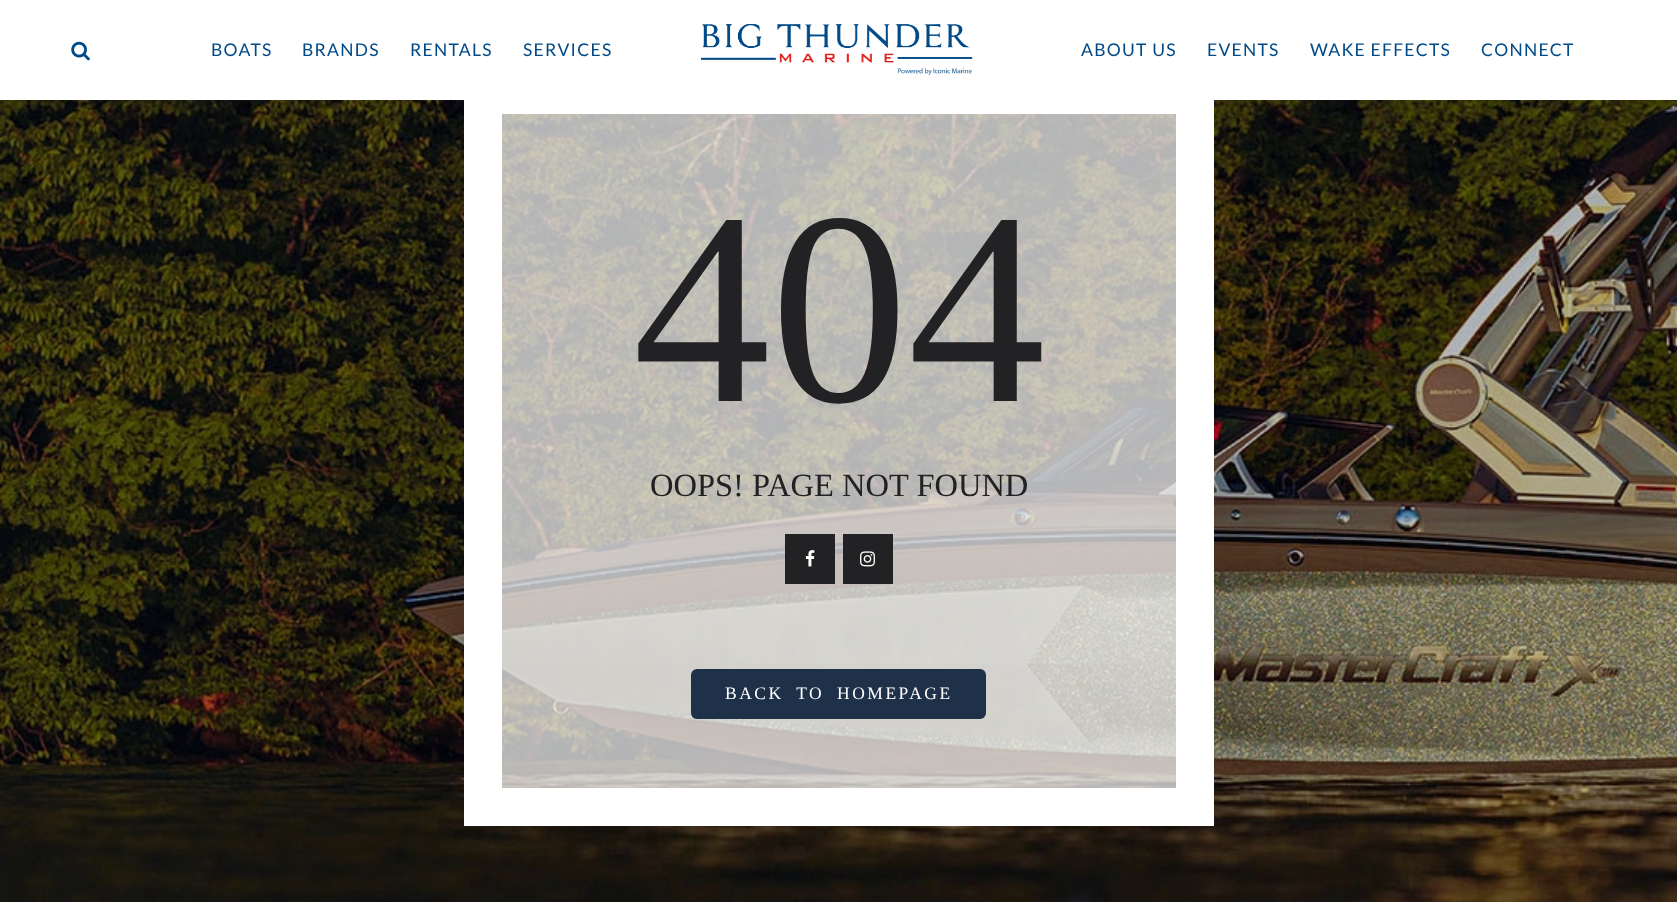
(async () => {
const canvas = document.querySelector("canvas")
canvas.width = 1677
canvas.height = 902
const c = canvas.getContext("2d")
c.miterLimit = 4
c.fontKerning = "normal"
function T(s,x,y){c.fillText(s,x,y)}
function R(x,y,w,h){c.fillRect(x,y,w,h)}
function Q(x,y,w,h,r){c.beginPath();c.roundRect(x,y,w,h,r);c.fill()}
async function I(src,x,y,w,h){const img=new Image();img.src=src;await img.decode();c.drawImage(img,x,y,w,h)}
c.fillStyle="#fff"
R(0,0,1677,902)
await I("1.png",71,41,19,20)
c.letterSpacing="1.25px"
c.font="17.5px Lato"
c.fillStyle="#004a87"
T("BOATS",211,56)
T("BRANDS",302,56)
T("RENTALS",410,56)
T("SERVICES",523,56)
await I("2.png",701,24,272,51)
T("ABOUT US",1081,56)
T("EVENTS",1207,56)
T("WAKE EFFECTS",1310,56)
T("CONNECT",1481,56)
await I("3.png",0,100,1677,802)
c.fillStyle="#ffffffb3"
c.beginPath()
c.rect(483,95,712,712)
c.fill()
c.strokeStyle="#fff"
c.lineWidth=38
c.stroke()
c.letterSpacing="0px"
c.font="275px Liberation Serif"
c.fillStyle="#222225"
T("404",633,401)
c.font="32.5px Liberation Serif"
T("OOPS! PAGE NOT FOUND",650,496)
R(785,534,50,50)
await I("4.png",805,550,10,17)
R(843,534,50,50)
await I("5.png",860,551,15,16)
c.fillStyle="#1e3149"
Q(691,669,295,50,6)
c.letterSpacing="2.5px"
c.wordSpacing="6px"
c.font="17.5px Liberation Serif"
c.fillStyle="#fff"
T("BACK TO HOMEPAGE",725,699)
})()
